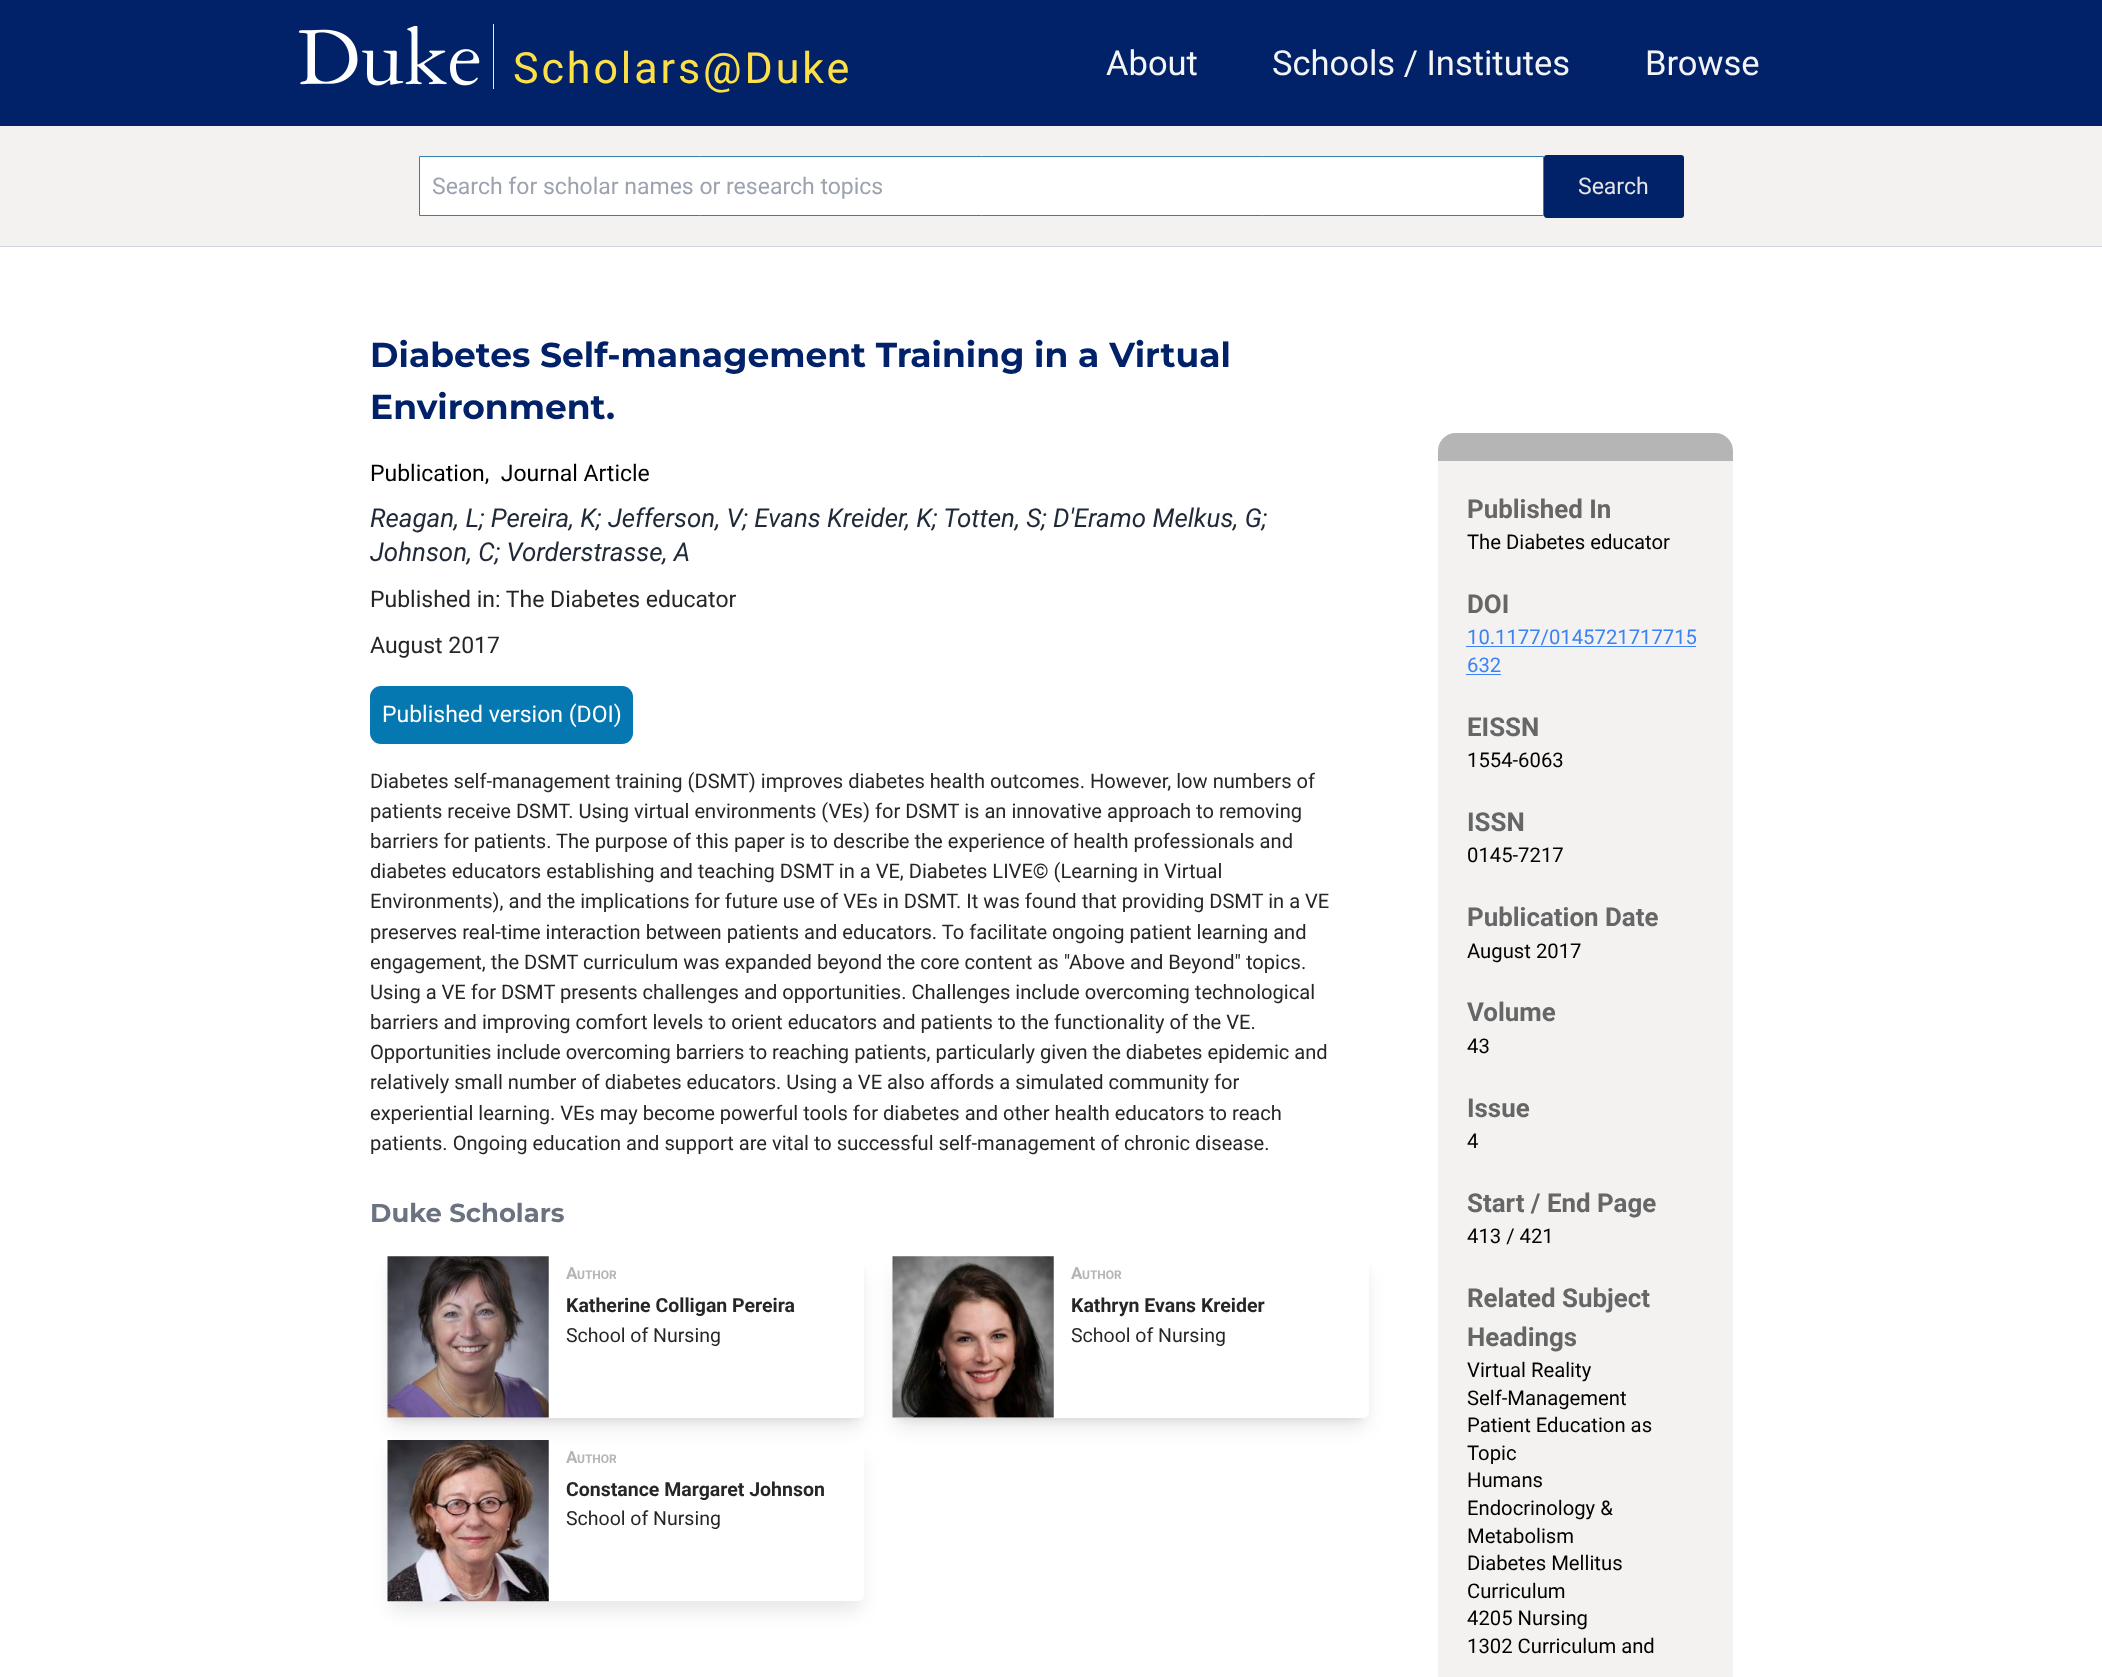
(async () => {
const canvas = document.querySelector("canvas")
canvas.width = 2102
canvas.height = 1677
const c = canvas.getContext("2d")
c.miterLimit = 4
c.fontKerning = "normal"
function T(s,x,y){c.fillText(s,x,y)}
function R(x,y,w,h){c.fillRect(x,y,w,h)}
function Q(x,y,w,h,r){c.beginPath();c.roundRect(x,y,w,h,r);c.fill()}
async function I(src,x,y,w,h){const img=new Image();img.src=src;await img.decode();c.drawImage(img,x,y,w,h)}
let path
c.fillStyle="#fff"
R(0,0,2102,1677)
c.fillStyle="#012169"
R(0,0,2102,126)
await I("1.png",298,26,182,60)
c.fillStyle="#e5e7eb"
R(493,24,1,65)
c.letterSpacing="2.9px"
c.font="43px Roboto"
c.fillStyle="#fde047"
T("Scholars@Duke",513,83)
c.letterSpacing="0px"
c.font="34.5px Roboto"
c.fillStyle="#f3f4f6"
T("About",1106,75)
T("Schools / Institutes",1272,75)
T("Browse",1645,75)
c.fillStyle="#d1d5db"
R(0,246,2102,1)
c.fillStyle="#f3f2f1"
R(0,126,2102,120)
c.fillStyle="#fff"
c.beginPath()
c.rect(419.5,156.5,1124,59)
c.fill()
c.strokeStyle="#3180af"
c.stroke()
c.font="23px Roboto"
c.fillStyle="#9ca3af"
T("Search for scholar names or research topics",432,194)
c.fillStyle="#012169"
Q(1544,155,140,63,3)
c.fillStyle="#e5e5e5"
T("Search",1578,194)
c.font="bold 34.5px Montserrat"
c.fillStyle="#012169"
T("Diabetes Self-management Training in a Virtual",370,367)
T("Environment.",370,419)
c.font="23px Roboto"
c.fillStyle="#000"
T("Publication,  Journal Article",370,481)
c.font="italic 25.9px Roboto"
c.fillStyle="#1f2937"
T("Reagan, L; Pereira, K; Jefferson, V; Evans Kreider, K; Totten, S; D'Eramo Melkus, G;",370,527)
T("Johnson, C; Vorderstrasse, A",370,561)
c.font="23px Roboto"
c.fillStyle="#262626"
T("Published in: The Diabetes educator",370,607)
T("August 2017",370,653)
c.fillStyle="#0577b1"
Q(370,686,263,58,11)
c.fillStyle="#fff"
T("Published version (DOI)",382,722)
c.font="20.1px Roboto"
c.fillStyle="#262626"
T("Diabetes self-management training (DSMT) improves diabetes health outcomes. However, low numbers of",370,788)
T("patients receive DSMT. Using virtual environments (VEs) for DSMT is an innovative approach to removing",370,818)
T("barriers for patients. The purpose of this paper is to describe the experience of health professionals and",370,848)
T("diabetes educators establishing and teaching DSMT in a VE, Diabetes LIVE© (Learning in Virtual",370,878)
T("Environments), and the implications for future use of VEs in DSMT. It was found that providing DSMT in a VE",370,908)
T("preserves real-time interaction between patients and educators. To facilitate ongoing patient learning and",370,939)
T("engagement, the DSMT curriculum was expanded beyond the core content as \"Above and Beyond\" topics.",370,969)
T("Using a VE for DSMT presents challenges and opportunities. Challenges include overcoming technological",370,999)
T("barriers and improving comfort levels to orient educators and patients to the functionality of the VE.",370,1029)
T("Opportunities include overcoming barriers to reaching patients, particularly given the diabetes epidemic and",370,1059)
T("relatively small number of diabetes educators. Using a VE also affords a simulated community for",370,1089)
T("experiential learning. VEs may become powerful tools for diabetes and other health educators to reach",370,1120)
T("patients. Ongoing education and support are vital to successful self-management of chronic disease.",370,1150)
c.font="bold 25.9px Montserrat"
c.fillStyle="#6b7280"
T("Duke Scholars",370,1222)
c.save()
path = new Path2D("M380 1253h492v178h-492zm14 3h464c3.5 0 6 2.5 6 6v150c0 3.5-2.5 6-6 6h-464c-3.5 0-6-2.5-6-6v-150c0-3.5 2.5-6 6-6z")
c.clip(path,"evenodd")
c.fillStyle="#0000001a"
c.filter="blur(4px)"
c.beginPath()
c.roundRect(393,1266,466,152,1)
c.fill()
c.filter="none"
c.restore()
c.save()
path = new Path2D("M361 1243h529v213h-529zm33 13h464c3.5 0 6 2.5 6 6v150c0 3.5-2.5 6-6 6h-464c-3.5 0-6-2.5-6-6v-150c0-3.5 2.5-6 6-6z")
c.clip(path,"evenodd")
c.fillStyle="#0000001a"
c.filter="blur(9.5px)"
c.beginPath()
c.roundRect(391,1273,469,153,2.5)
c.fill()
c.filter="none"
c.restore()
await I("2.png",387,1256,162,162)
c.font="bold 17px Roboto"
c.fillStyle="#b5b5b5"
T("A",566,1279)
c.font="bold 12px Roboto"
T("UTHOR",577,1279)
c.font="bold 19.5px Roboto"
c.fillStyle="#262626"
T("Katherine Colligan Pereira",566,1312)
c.font="19.5px Roboto"
T("School of Nursing",566,1342)
c.save()
path = new Path2D("M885 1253h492v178h-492zm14 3h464c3.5 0 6 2.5 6 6v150c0 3.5-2.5 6-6 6h-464c-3.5 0-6-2.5-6-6v-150c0-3.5 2.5-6 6-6z")
c.clip(path,"evenodd")
c.fillStyle="#0000001a"
c.filter="blur(4px)"
c.beginPath()
c.roundRect(898,1266,466,152,1)
c.fill()
c.filter="none"
c.restore()
c.save()
path = new Path2D("M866 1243h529v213h-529zm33 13h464c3.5 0 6 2.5 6 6v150c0 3.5-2.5 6-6 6h-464c-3.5 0-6-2.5-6-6v-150c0-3.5 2.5-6 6-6z")
c.clip(path,"evenodd")
c.fillStyle="#0000001a"
c.filter="blur(9.5px)"
c.beginPath()
c.roundRect(896,1273,469,153,2.5)
c.fill()
c.filter="none"
c.restore()
await I("3.png",892,1256,162,162)
c.font="bold 17px Roboto"
c.fillStyle="#b5b5b5"
T("A",1071,1279)
c.font="bold 12px Roboto"
T("UTHOR",1082,1279)
c.font="bold 19.5px Roboto"
c.fillStyle="#262626"
T("Kathryn Evans Kreider",1071,1312)
c.font="19.5px Roboto"
T("School of Nursing",1071,1342)
c.save()
path = new Path2D("M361 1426h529v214h-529zm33 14h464c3.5 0 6 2.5 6 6v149c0 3.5-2.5 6-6 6h-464c-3.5 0-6-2.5-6-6v-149c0-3.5 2.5-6 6-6z")
c.clip(path,"evenodd")
c.fillStyle="#0000001a"
c.filter="blur(9.5px)"
c.beginPath()
c.roundRect(391,1456,469,154,2.5)
c.fill()
c.filter="none"
c.restore()
await I("4.png",387,1440,162,162)
c.font="bold 17px Roboto"
c.fillStyle="#b5b5b5"
T("A",566,1463)
c.font="bold 12px Roboto"
T("UTHOR",577,1463)
c.font="bold 19.5px Roboto"
c.fillStyle="#262626"
T("Constance Margaret Johnson",566,1496)
c.font="19.5px Roboto"
T("School of Nursing",566,1525)
c.fillStyle="#f3f2f1"
Q(1438,433,295,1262,18)
c.fillStyle="#b5b5b5"
c.beginPath()
c.roundRect(1438,433,295,28,[18,18,0,0])
c.fill()
c.font="bold 25.9px Roboto"
c.fillStyle="#666"
T("Published In",1467,518)
c.font="20.25px Roboto"
c.fillStyle="#000"
T("The Diabetes educator",1467,549)
c.font="bold 25.9px Roboto"
c.fillStyle="#666"
T("DOI",1467,613)
c.font="20.25px Roboto"
c.fillStyle="#3b82f6"
T("10.1177/0145721717715",1467,644)
R(1466,646,230,1)
T("632",1467,672)
R(1466,674,35,1)
c.font="bold 25.9px Roboto"
c.fillStyle="#666"
T("EISSN",1467,736)
c.font="20.25px Roboto"
c.fillStyle="#000"
T("1554-6063",1467,767)
c.font="bold 25.9px Roboto"
c.fillStyle="#666"
T("ISSN",1467,831)
c.font="20.25px Roboto"
c.fillStyle="#000"
T("0145-7217",1467,862)
c.font="bold 25.9px Roboto"
c.fillStyle="#666"
T("Publication Date",1467,926)
c.font="20.25px Roboto"
c.fillStyle="#000"
T("August 2017",1467,958)
c.font="bold 25.9px Roboto"
c.fillStyle="#666"
T("Volume",1467,1021)
c.font="20.25px Roboto"
c.fillStyle="#000"
T("43",1467,1053)
c.font="bold 25.9px Roboto"
c.fillStyle="#666"
T("Issue",1467,1117)
c.font="20.25px Roboto"
c.fillStyle="#000"
T("4",1467,1148)
c.font="bold 25.9px Roboto"
c.fillStyle="#666"
T("Start / End Page",1467,1212)
c.font="20.25px Roboto"
c.fillStyle="#000"
T("413 / 421",1467,1243)
c.font="bold 25.9px Roboto"
c.fillStyle="#666"
T("Related Subject",1467,1307)
T("Headings",1467,1346)
c.font="20.25px Roboto"
c.fillStyle="#000"
T("Virtual Reality",1467,1377)
T("Self-Management",1467,1405)
T("Patient Education as",1467,1432)
T("Topic",1467,1460)
T("Humans",1467,1487)
T("Endocrinology &",1467,1515)
T("Metabolism",1467,1543)
T("Diabetes Mellitus",1467,1570)
T("Curriculum",1467,1598)
T("4205 Nursing",1467,1625)
T("1302 Curriculum and",1467,1653)
})()
